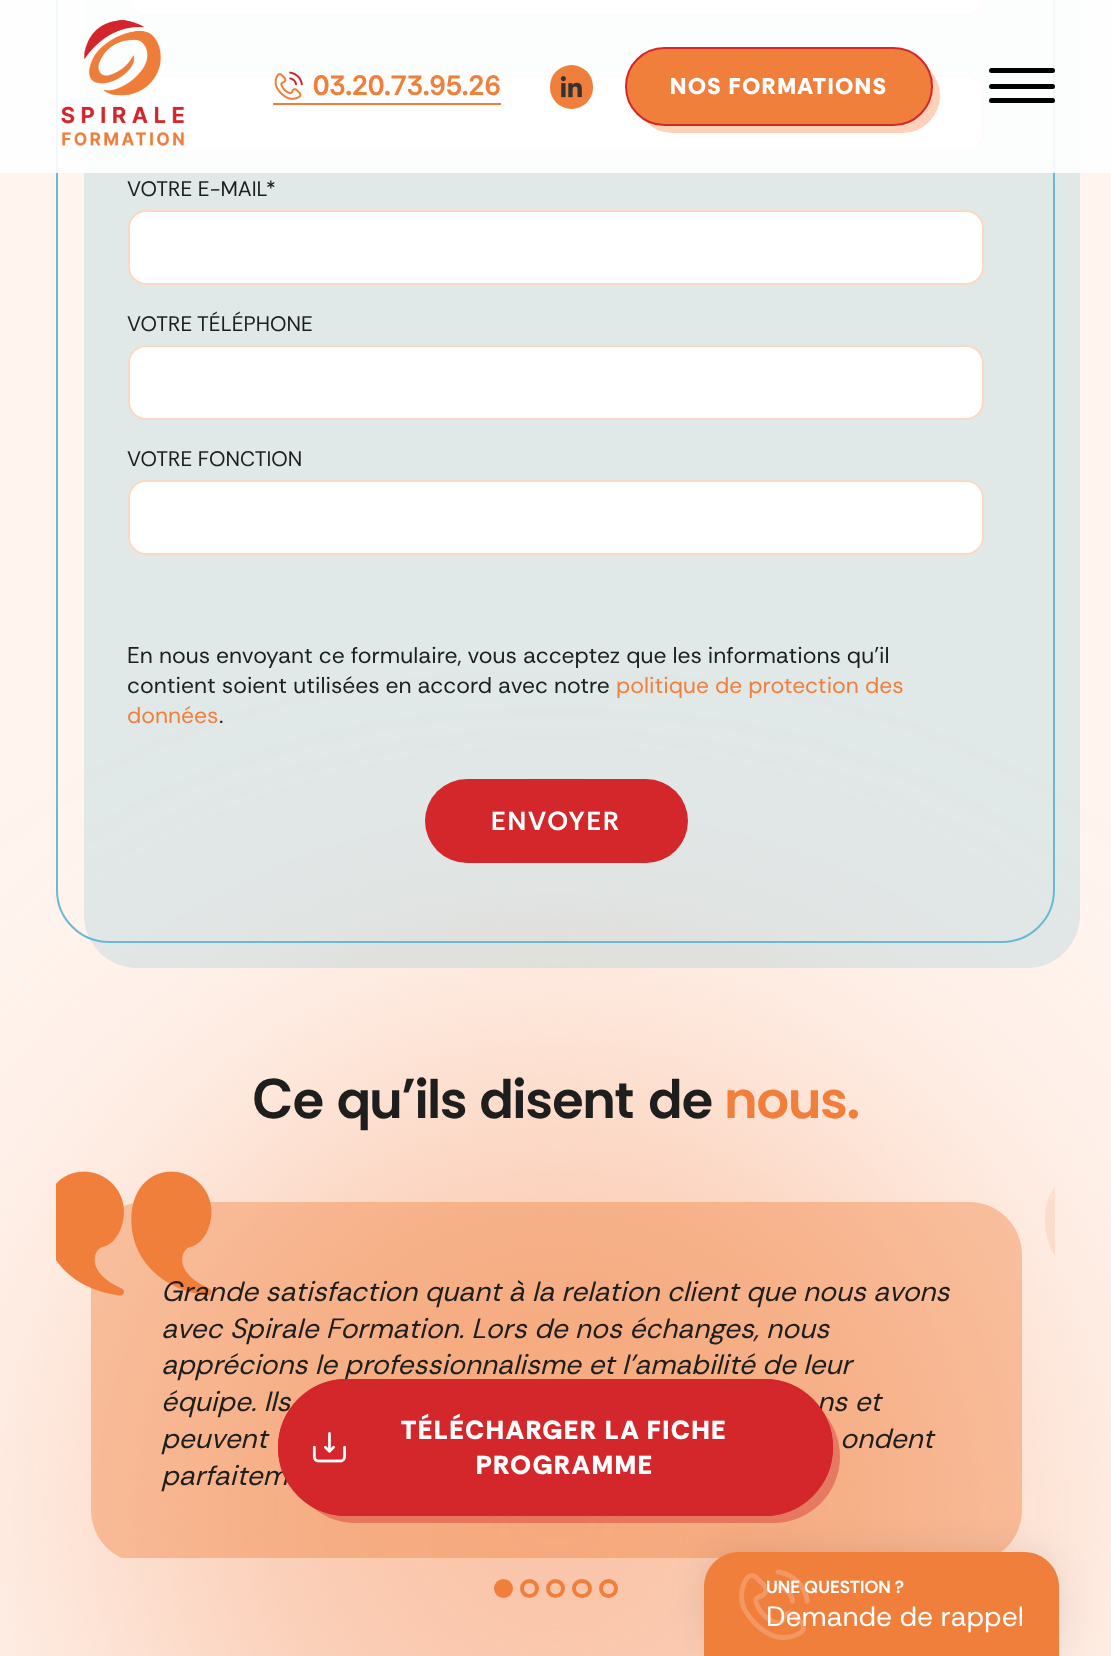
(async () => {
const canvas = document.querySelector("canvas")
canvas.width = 1111
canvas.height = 1656
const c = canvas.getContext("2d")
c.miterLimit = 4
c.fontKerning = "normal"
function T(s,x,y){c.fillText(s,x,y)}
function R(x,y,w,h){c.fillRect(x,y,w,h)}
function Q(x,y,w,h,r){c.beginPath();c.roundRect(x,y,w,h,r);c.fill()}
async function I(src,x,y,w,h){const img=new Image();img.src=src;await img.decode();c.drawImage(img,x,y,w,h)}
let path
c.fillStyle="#fff4ee"
R(0,0,1111,1656)
c.fillStyle="#fac4a8"
c.filter="blur(175px)"
c.beginPath()
c.roundRect(119,1071,875,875,437.5)
c.fill()
c.filter="none"
c.fillStyle="#68b9d333"
Q(84,-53,996,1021,53)
c.beginPath()
c.roundRect(57,-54,997,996,52)
c.strokeStyle="#68b9d3"
c.lineWidth=2
c.stroke()
c.fillStyle="#fff"
Q(128,-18,856,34,18)
c.beginPath()
c.roundRect(129,-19,854,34,17)
c.strokeStyle="#f07f3c4d"
c.stroke()
Q(128,75,856,76,18)
c.beginPath()
c.roundRect(129,76,854,74,17)
c.stroke()
c.fillStyle="#ffffffe6"
R(0,0,1111,173)
await I("1.png",61,19,124,127)
await I("2.png",274,71,29,29)
c.fillStyle="#f07f3c"
R(273,103,228,2)
c.font="100 28px Rethink Sans"
T("03.20.73.95.26",313,95)
Q(550,65,43,44,21.5)
await I("3.png",560,76,22,22)
c.fillStyle="#ffd1b8"
Q(635,58,305,75,37.5)
c.fillStyle="#f07f3c"
c.beginPath()
c.roundRect(626,48,306,77,38.5)
c.fill()
c.strokeStyle="#d3272b"
c.stroke()
c.letterSpacing="1.75px"
c.font="100 22.75px 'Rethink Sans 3'"
c.fillStyle="#fff"
T("NOS FORMATIONS",670,94)
c.fillStyle="#000"
Q(989,68,66,5,2.5)
Q(989,84,66,5,2.5)
Q(989,98,66,5,2.5)
c.letterSpacing="0px"
c.font="100 21px 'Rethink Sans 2'"
c.fillStyle="#1e1e1e"
T("VOTRE E-MAIL*",127,196)
c.fillStyle="#fff"
Q(128,210,856,75,18)
c.beginPath()
c.roundRect(129,211,854,73,17)
c.strokeStyle="#f07f3c4d"
c.stroke()
c.fillStyle="#1e1e1e"
T("VOTRE TÉLÉPHONE",127,331)
c.fillStyle="#fff"
Q(128,345,856,75,18)
c.beginPath()
c.roundRect(129,346,854,73,17)
c.stroke()
c.fillStyle="#1e1e1e"
T("VOTRE FONCTION",127,466)
c.fillStyle="#fff"
Q(128,480,856,75,18)
c.beginPath()
c.roundRect(129,481,854,73,17)
c.stroke()
c.font="100 22.75px 'Rethink Sans 2'"
c.fillStyle="#1e1e1e"
T("En nous envoyant ce formulaire, vous acceptez que les informations qu'il",127,663)
T("contient soient utilisées en accord avec notre",127,693)
c.fillStyle="#f07f3c"
T("politique de protection des",616,693)
T("données",127,723)
c.fillStyle="#1e1e1e"
T(".",219,723)
c.fillStyle="#d3272b"
Q(425,779,263,84,42)
c.letterSpacing="1.75px"
c.font="100 26.25px Rethink Sans"
c.fillStyle="#fff"
T("ENVOYER",491,830)
c.letterSpacing="0px"
c.font="100 56px Rethink Sans"
c.fillStyle="#1e1e1e"
T("Ce qu'ils disent de",252,1118)
c.fillStyle="#f07f3c"
T("nous.",725,1118)
await I("4.png",1045,1186,10,71)
await I("5.png",56,1171,156,125)
c.save()
c.beginPath()
c.rect(56,1132,999,426)
c.clip()
c.fillStyle="#f07f3c66"
Q(91,1202,931,361,53)
c.restore()
c.font="italic 100 28px Rethink Sans"
c.fillStyle="#1e1e1e"
T("Grande satisfaction quant à la relation client que nous avons",161,1301)
T("avec Spirale Formation. Lors de nos échanges, nous",161,1338)
T("apprécions le professionnalisme et l’amabilité de leur",161,1374)
T("équipe. Ils",161,1411)
T("ns et",817,1411)
T("peuvent",161,1448)
T("ondent",840,1448)
T("parfaitem",161,1485)
c.fillStyle="#f07f3c"
c.beginPath()
c.arc(503.5,1588.5,7.5,0,7)
c.fill()
c.strokeStyle="#f07f3c"
c.lineWidth=4
c.stroke()
c.beginPath()
c.arc(529.5,1588.5,7.5,0,7)
c.stroke()
c.beginPath()
c.arc(555.5,1588.5,7.5,0,7)
c.stroke()
c.beginPath()
c.roundRect(574,1581,16,15,7.5)
c.stroke()
c.beginPath()
c.arc(608.5,1588.5,7.5,0,7)
c.stroke()
c.fillStyle="#d3272b66"
Q(289,1390,551,133,66.5)
c.fillStyle="#d3272b"
Q(278,1379,555,137,68.5)
await I("6.png",312,1432,34,31)
c.beginPath()
c.roundRect(279,1380,553,135,67.5)
c.strokeStyle="#d3272b"
c.lineWidth=2
c.stroke()
c.letterSpacing="1.75px"
c.font="100 26.25px 'Rethink Sans 3'"
c.fillStyle="#fff"
T("TÉLÉCHARGER LA FICHE",401,1439)
T("PROGRAMME",476,1474)
c.fillStyle="#1e1e1e1a"
c.filter="blur(17.5px)"
c.beginPath()
c.roundRect(704,1552,355,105,35)
c.fill()
c.filter="none"
c.fillStyle="#f07f3c"
path = new Path2D("M739 1552h285c19.5 0 35 15.5 35 35v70h-355v-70c0-19.5 15.5-35 35-35z")
c.fill(path)
c.letterSpacing="0px"
c.font="100 17.5px Rethink Sans"
c.fillStyle="#fff"
T("UNE QUESTION ?",766,1593)
c.font="100 28px 'Rethink Sans 2'"
T("Demande de rappel",766,1626)
await I("7.png",739,1569,71,71)
})()
